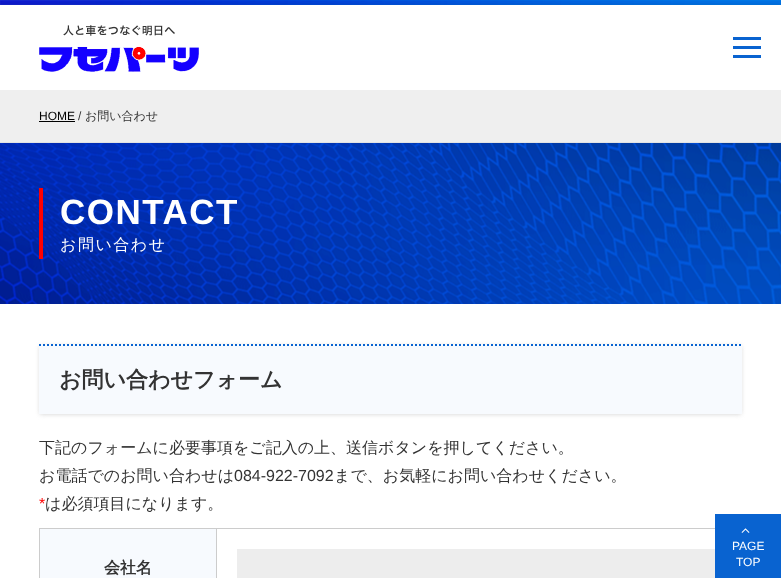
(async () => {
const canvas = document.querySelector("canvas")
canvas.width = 781
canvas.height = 578
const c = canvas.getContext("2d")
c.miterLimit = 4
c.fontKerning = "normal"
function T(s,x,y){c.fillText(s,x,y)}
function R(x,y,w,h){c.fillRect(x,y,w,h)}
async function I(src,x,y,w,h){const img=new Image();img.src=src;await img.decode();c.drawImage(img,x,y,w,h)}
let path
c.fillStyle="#fff"
R(0,0,781,578)
await I("1.png",0,0,781,5)
await I("2.png",39,25,160,47)
c.fillStyle="#0963d0"
R(733,37,28,3)
R(733,46,28,3)
R(733,55,28,3)
c.fillStyle="#efefef"
R(0,90,781,52)
c.fillStyle="#e3e3e3"
R(0,142,781,1)
c.font="12px Liberation Sans"
c.fillStyle="#000"
T("HOME",39,120)
R(39,121,36,1)
c.fillStyle="#333"
T("/",78,120)
c.font="500 12px WenQuanYi Zen Hei"
T("お問い合わせ",85,120)
await I("3.png",0,143,781,161)
c.fillStyle="#fe0000"
R(39,188,4,71)
c.letterSpacing="1.5px"
c.font="bold 35px Liberation Sans"
c.fillStyle="#fff"
T("CONTACT",60,224)
c.font="500 16px WenQuanYi Zen Hei"
T("お問い合わせ",60,250)
c.fillStyle="#cfcfcf"
c.filter="blur(2.5px)"
c.beginPath()
c.rect(40,346,701,68)
c.fill()
c.filter="none"
c.fillStyle="#f7fafe"
R(39,344,703,70)
path = new Path2D("M39 345h703")
c.strokeStyle="#0963d0"
c.lineWidth=2
c.setLineDash([2,2])
c.stroke(path)
c.letterSpacing="0px"
c.font="bold 22px WenQuanYi Zen Hei"
c.fillStyle="#333"
T("お問い合わせフォーム",59,387)
c.font="500 16px WenQuanYi Zen Hei"
T("下記のフォームに必要事項をご記入の上、送信ボタンを押してください。",39,453)
T("お電話でのお問い合わせは",39,481)
c.font="16px Liberation Sans"
T("084-922-7092",234,481)
c.font="500 16px WenQuanYi Zen Hei"
T("まで、お気軽にお問い合わせください。",334,481)
c.font="16px Liberation Sans"
c.fillStyle="#f00"
T("*",39,509)
c.font="500 16px WenQuanYi Zen Hei"
c.fillStyle="#333"
T("は必須項目になります。",45,509)
c.fillStyle="#ccc"
R(39,528,676,1)
R(39,528,1,50)
c.fillStyle="#f7fafe"
R(40,529,176,49)
c.fillStyle="#ccc"
R(216,528,1,50)
c.font="bold 16px WenQuanYi Zen Hei"
c.fillStyle="#333"
T("会社名",104,573)
c.fillStyle="#ededed"
R(237,549,478,29)
c.fillStyle="#0963d0"
R(715,514,66,64)
await I("4.png",741,528,9,5)
c.font="12px Liberation Sans"
c.fillStyle="#fff"
T("PAGE",732,550)
T("TOP",736,566)
})()
